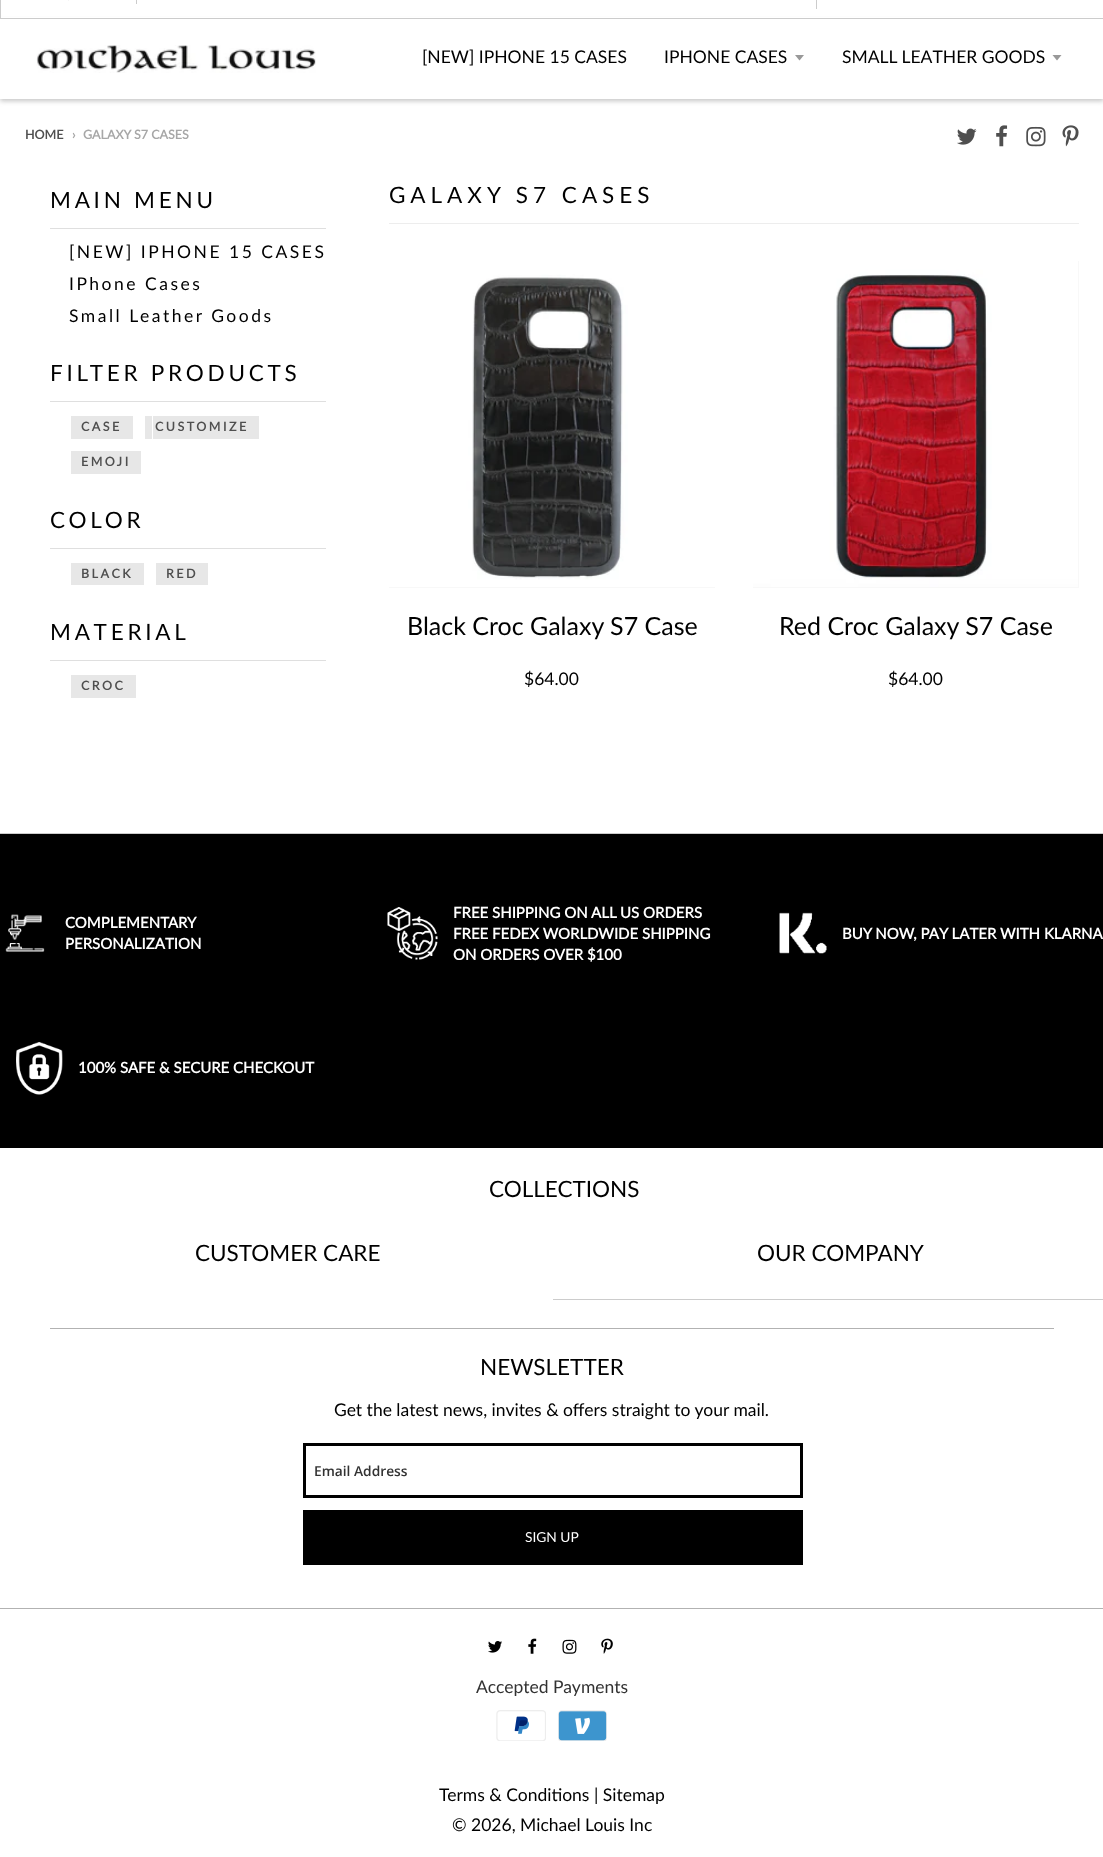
(async () => {
const canvas = document.querySelector("canvas")
canvas.width = 1103
canvas.height = 1857
const c = canvas.getContext("2d")
c.miterLimit = 4
c.fontKerning = "normal"
function T(s,x,y){c.fillText(s,x,y)}
function R(x,y,w,h){c.fillRect(x,y,w,h)}
async function I(src,x,y,w,h){const img=new Image();img.src=src;await img.decode();c.drawImage(img,x,y,w,h)}
let path
c.fillStyle="#fff"
R(0,0,1103,1857)
c.fillStyle="#8a8a8a80"
c.filter="blur(2.5px)"
c.beginPath()
c.rect(0,21,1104,80)
c.fill()
c.filter="none"
c.fillStyle="#fff"
R(1,17,1102,1)
c.strokeStyle="#ccc"
c.strokeRect(.5,-.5,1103,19)
c.fillStyle="#f5f5f5"
R(68,0,1,1)
c.fillStyle="#ccc"
R(136,0,1,4)
R(816,0,1,9)
c.fillStyle="#fff"
R(0,19,1103,80)
await I("1.png",36,45,280,28)
c.font="17.5px Lato"
c.fillStyle="#000"
T("[NEW] IPHONE 15 CASES",422,63)
T("IPHONE CASES",664,63)
c.fillStyle="#999"
path = new Path2D("M795 55l4.5 5.5l4.5-5.5z")
c.fill(path)
c.fillStyle="#000"
T("SMALL LEATHER GOODS",842,63)
c.fillStyle="#999"
path = new Path2D("M1052.5 55l4.5 5.5l4.5-5.5z")
c.fill(path)
c.font="bold 12.5px Lato"
c.fillStyle="#4f4f4f"
T("HOME",25,139)
c.fillStyle="#a7a7a7"
T("›",72,139)
T("GALAXY S7 CASES",83,139)
await I("2.png",957,128,20,17)
await I("3.png",996,125,12,22)
await I("4.png",1026,126,20,21)
await I("5.png",1062,125,17,22)
c.fillStyle="#dfdfdf"
R(50,228,276,1)
c.letterSpacing="3.75px"
c.font="22.5px Lato"
c.fillStyle="#000"
T("MAIN MENU",50,208)
c.letterSpacing="2.5px"
c.font="17.5px Lato"
T("[NEW] IPHONE 15 CASES",69,258)
T("IPhone Cases",69,290)
T("Small Leather Goods",69,322)
c.fillStyle="#dfdfdf"
R(50,401,276,1)
c.letterSpacing="3.75px"
c.font="22.5px Lato"
c.fillStyle="#000"
T("FILTER PRODUCTS",50,381)
c.fillStyle="#e7e7e7"
path = new Path2D("M71 416v23h47h-39v-23h39zm15 0h39v23h-39h47v-23z")
c.fill(path)
R(79,416,46,23)
c.letterSpacing="2.5px"
c.font="bold 12.5px Lato"
c.fillStyle="#4f4f4f"
T("CASE",81,431)
c.fillStyle="#e7e7e7"
R(153,416,98,23)
c.fillStyle="#4f4f4f"
T("CUSTOMIZE",155,431)
c.fillStyle="#e7e7e7"
path = new Path2D("M145 416v23h99h-92v-23h92z")
c.fill(path)
path = new Path2D("M160 416h91v23h-91h99v-23z")
c.fill(path)
R(79,451,55,23)
c.fillStyle="#4f4f4f"
T("EMOJI",81,466)
c.fillStyle="#e7e7e7"
path = new Path2D("M71 451v23h55h-47v-23h47z")
c.fill(path)
path = new Path2D("M86 451h48v23h-48h55v-23z")
c.fill(path)
c.fillStyle="#dfdfdf"
R(50,548,276,1)
c.letterSpacing="3.75px"
c.font="22.5px Lato"
c.fillStyle="#000"
T("COLOR",50,528)
c.fillStyle="#e7e7e7"
R(79,563,65,22)
c.letterSpacing="2.5px"
c.font="bold 12.5px Lato"
c.fillStyle="#4f4f4f"
T("BLACK",81,578)
c.fillStyle="#e7e7e7"
R(71,563,8,22)
R(164,563,44,22)
c.fillStyle="#4f4f4f"
T("RED",166,578)
c.fillStyle="#e7e7e7"
R(156,563,8,22)
c.fillStyle="#dfdfdf"
R(50,660,276,1)
c.letterSpacing="3.75px"
c.font="22.5px Lato"
c.fillStyle="#000"
T("MATERIAL",50,640)
c.fillStyle="#e7e7e7"
R(79,675,50,23)
c.letterSpacing="2.5px"
c.font="bold 12.5px Lato"
c.fillStyle="#4f4f4f"
T("CROC",81,690)
c.fillStyle="#e7e7e7"
path = new Path2D("M71 675v23h50h-42v-23z")
c.fill(path)
path = new Path2D("M86 698h50v-23h-7v23z")
c.fill(path)
c.fillStyle="#ededed"
R(389,223,690,1)
c.letterSpacing="5px"
c.font="22.5px Lato"
c.fillStyle="#000"
T("GALAXY S7 CASES",389,203)
c.fillStyle="#f8f8f8"
R(389,587,326,1)
await I("6.png",389,261,326,326)
c.letterSpacing="0px"
c.font="25px Lato"
c.fillStyle="#000"
T("Black Croc Galaxy S7 Case",407,635)
c.font="17.5px Lato"
T("$64.00",524,685)
c.fillStyle="#f8f8f8"
R(753,261,326,327)
await I("7.png",753,261,325,326)
c.font="25px Lato"
c.fillStyle="#000"
T("Red Croc Galaxy S7 Case",779,635)
c.font="17.5px Lato"
T("$64.00",888,685)
c.fillStyle="#ccc"
R(0,833,1103,1)
c.fillStyle="#000"
R(0,834,1103,314)
await I("8.png",5,914,40,38)
c.font="bold 15px Lato"
c.fillStyle="#fff"
T("COMPLEMENTARY",65,928)
T("PERSONALIZATION",65,949)
await I("9.png",387,907,51,53)
T("FREE SHIPPING ON ALL US ORDERS",453,918)
T("FREE FEDEX WORLDWIDE SHIPPING",453,939)
T("ON ORDERS OVER $100",453,960)
await I("10.png",779,912,48,42)
T("BUY NOW, PAY LATER WITH KLARNA",842,939)
await I("11.png",16,1042,47,53)
T("100% SAFE & SECURE CHECKOUT",78,1073)
c.font="22.5px Lato"
c.fillStyle="#000"
T("COLLECTIONS",489,1197)
T("CUSTOMER CARE",195,1261)
c.fillStyle="#ccc"
R(553,1299,550,1)
c.fillStyle="#000"
T("OUR COMPANY",757,1261)
c.fillStyle="#b2b2b2"
R(50,1328,1004,1)
c.fillStyle="#000"
T("NEWSLETTER",480,1375)
c.font="17.5px Lato"
T("Get the latest news, invites & offers straight to your mail.",334,1416)
c.strokeStyle="#000"
c.lineWidth=3
c.strokeRect(304.5,1444.5,497,52)
c.font="600 13.75px Open Sans"
c.fillStyle="#323232"
T("Email Address",314,1476)
c.fillStyle="#000"
R(303,1510,500,55)
c.font="13.75px Lato"
c.fillStyle="#fff"
T("SIGN UP",525,1542)
c.fillStyle="#b2b2b2"
R(0,1608,1103,1)
await I("12.png",488,1641,14,12)
await I("13.png",528,1638,9,16)
await I("14.png",562,1639,15,15)
await I("15.png",601,1638,12,16)
c.font="17.5px Lato"
c.fillStyle="#323232"
T("Accepted Payments",476,1693)
await I("16.png",496,1710,50,31)
await I("17.png",558,1710,49,31)
c.fillStyle="#000"
T("Terms & Conditions | Sitemap",439,1801)
T("© 2026, Michael Louis Inc",452,1831)
})()
